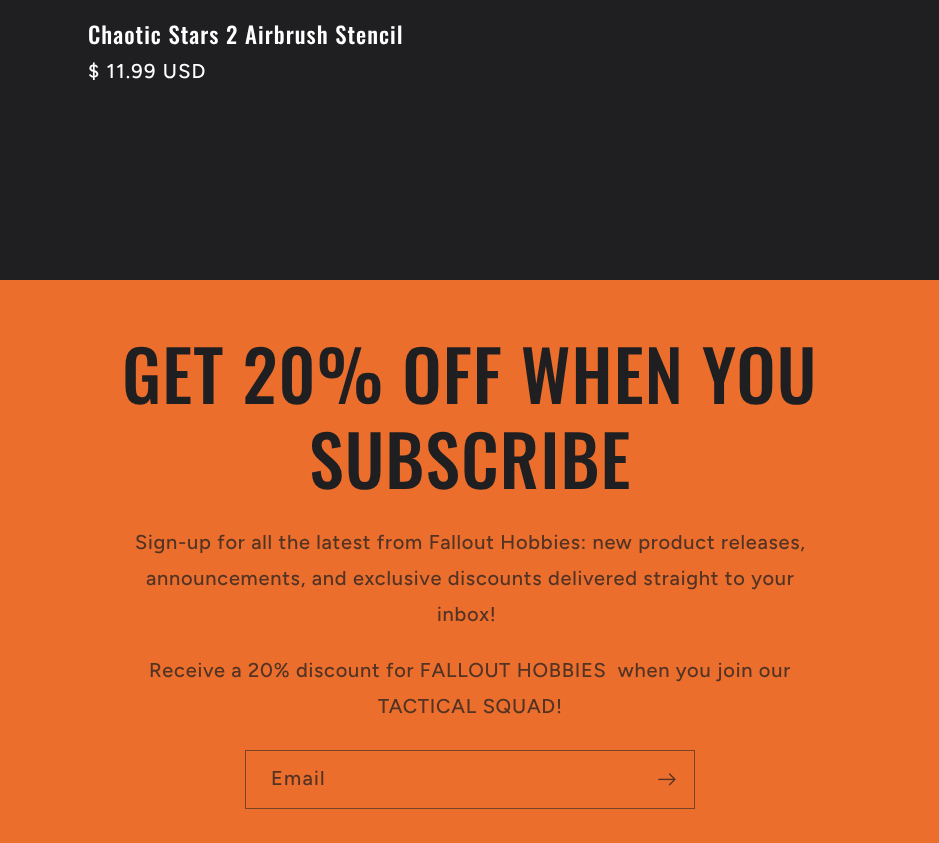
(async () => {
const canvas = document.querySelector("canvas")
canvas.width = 939
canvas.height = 843
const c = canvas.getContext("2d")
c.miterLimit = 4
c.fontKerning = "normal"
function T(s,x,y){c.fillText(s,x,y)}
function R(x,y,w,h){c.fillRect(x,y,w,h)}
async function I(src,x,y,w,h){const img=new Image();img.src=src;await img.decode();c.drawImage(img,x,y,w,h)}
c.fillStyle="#1f1f21"
R(0,0,939,843)
c.letterSpacing="1.05px"
c.font="500 22.75px Oswald"
c.fillStyle="#fff"
T("Chaotic Stars 2 Airbrush Stencil",88,44)
c.letterSpacing="1.25px"
c.font="500 20px Figtree"
T("$ 11.99 USD",88,78)
c.fillStyle="#eb6e2d"
R(0,280,939,563)
c.letterSpacing="1.05px"
c.font="500 70px Oswald"
c.fillStyle="#1f1f21"
T("GET 20% OFF WHEN YOU",122,404)
T("SUBSCRIBE",309,489)
c.letterSpacing="0.75px"
c.font="500 20px Figtree"
c.fillStyle="#523324"
T("Sign-up for all the latest from Fallout Hobbies: new product releases,",135,549)
T("announcements, and exclusive discounts delivered straight to your",146,585)
T("inbox!",437,621)
T("Receive a 20% discount for FALLOUT HOBBIES  when you join our",149,677)
T("TACTICAL SQUAD!",378,713)
c.strokeStyle="#7b4326"
c.strokeRect(245.5,750.5,449,58)
c.letterSpacing="1.25px"
T("Email",271,785)
await I("1.png",658,773,18,13)
})()
